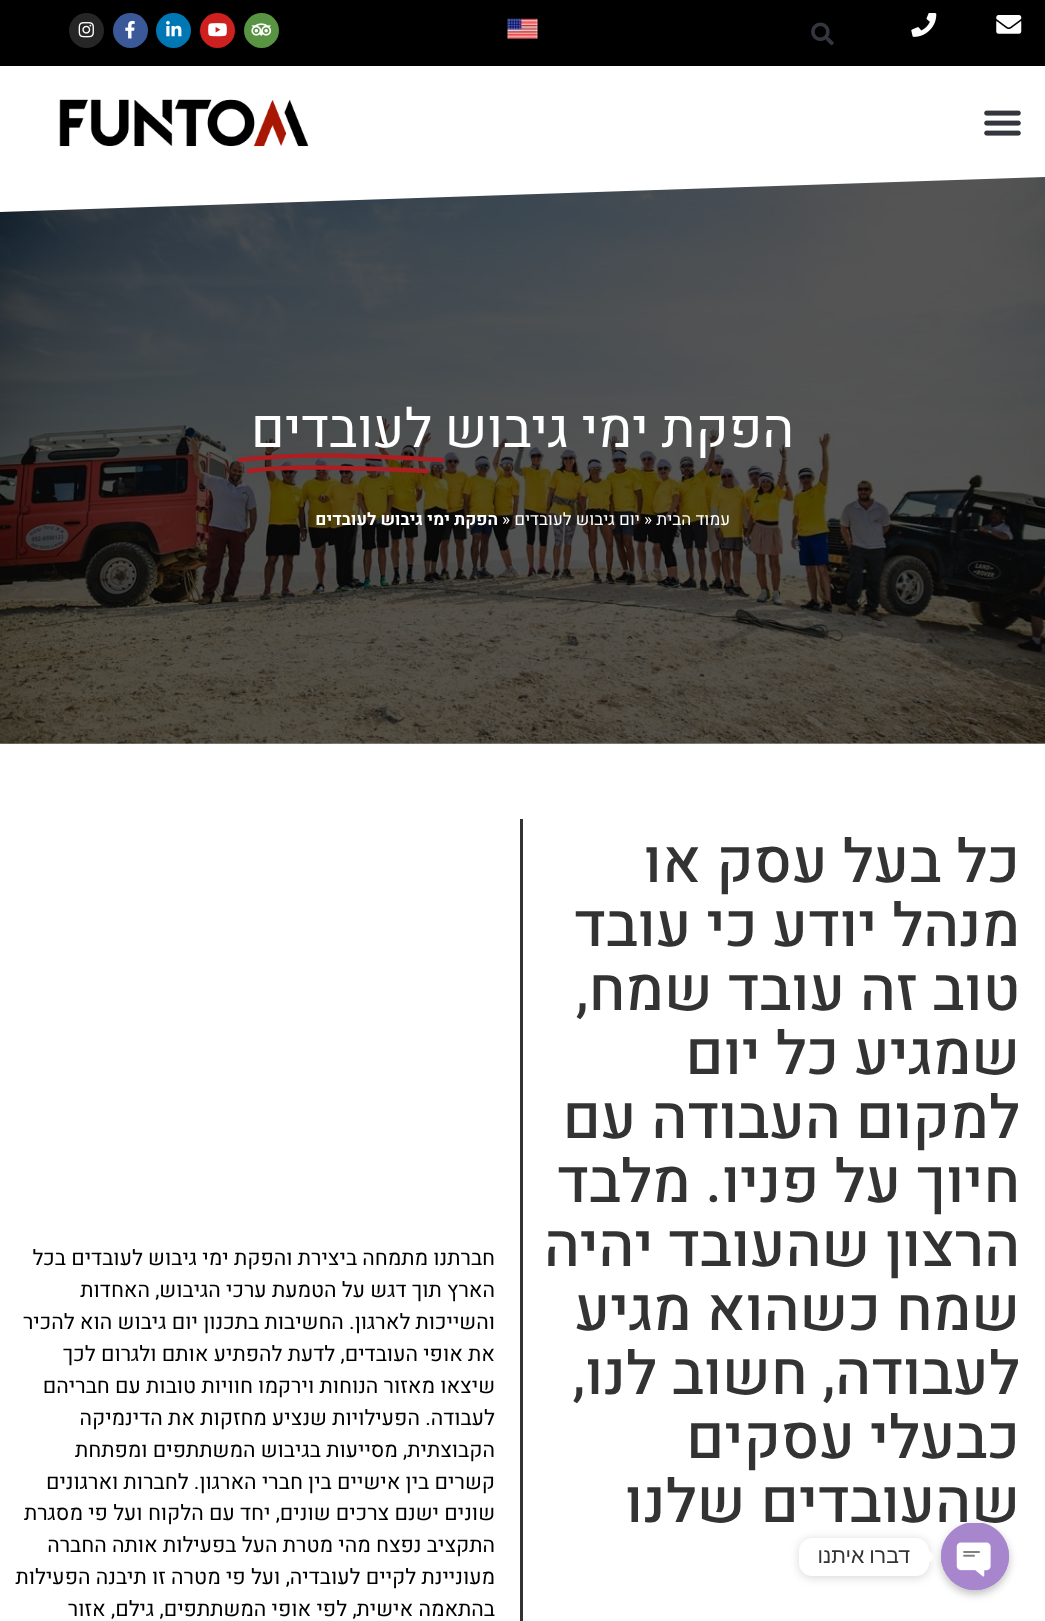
(async () => {
const canvas = document.querySelector("canvas")
canvas.width = 1045
canvas.height = 1621
const c = canvas.getContext("2d")
c.miterLimit = 4
c.fontKerning = "normal"
function T(s,x,y){c.fillText(s,x,y)}
function R(x,y,w,h){c.fillRect(x,y,w,h)}
function Q(x,y,w,h,r){c.beginPath();c.roundRect(x,y,w,h,r);c.fill()}
async function I(src,x,y,w,h){const img=new Image();img.src=src;await img.decode();c.drawImage(img,x,y,w,h)}
let path
c.fillStyle="#fff"
R(0,0,1045,1621)
c.fillStyle="#000"
R(0,0,1045,66)
await I("1.png",996,15,26,19)
await I("2.png",911,13,26,24)
await I("3.png",811,22,23,24)
await I("4.png",507,18,31,21)
c.fillStyle="#589442"
c.beginPath()
c.arc(261.5,30.5,17.5,0,7)
c.fill()
await I("5.png",251,23,21,13)
c.fillStyle="#cd201f"
c.beginPath()
c.arc(217.5,30.5,17.5,0,7)
c.fill()
await I("6.png",208,23,19,14)
c.fillStyle="#0077b5"
c.beginPath()
c.arc(173.5,30.5,17.5,0,7)
c.fill()
await I("7.png",166,21,16,16)
c.fillStyle="#3b5998"
c.beginPath()
c.arc(130.5,30.5,17.5,0,7)
c.fill()
await I("8.png",125,20,10,19)
c.fillStyle="#262626"
c.beginPath()
c.arc(86.5,30.5,17.5,0,7)
c.fill()
await I("9.png",78,22,16,16)
await I("10.png",984,110,37,26)
await I("11.png",59,99,250,48)
await I("12.png",0,177,1045,567)
c.fillStyle="#fff"
path = new Path2D("M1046 177v-2h-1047v37z")
c.fill(path)
c.direction="rtl"
c.font="53.75px Heebo"
T("הפקת ימי גיבוש",794,447)
T("לעובדים",432,447)
path = new Path2D("M240 460c13-2 57-4.5 73.5-4.5c48 0 104 3 129 4.5")
c.strokeStyle="#ab1f23"
c.lineWidth=4.5
c.lineCap="round"
c.lineJoin="round"
c.stroke(path)
path = new Path2D("M249 471c23-3.5 52-3.5 67-3.5c19.5 0 84 2 111 3.5")
c.stroke(path)
c.font="17px Heebo"
T("עמוד הבית",730,525)
c.direction="ltr"
T("»",644,525)
c.direction="rtl"
T("יום גיבוש לעובדים",640,525)
c.direction="ltr"
T("»",502,525)
c.direction="rtl"
c.font="bold 17px Heebo"
T("הפקת ימי גיבוש לעובדים",498,525)
await I("13.png",588,743,457,1)
c.font="500 60px Heebo"
c.fillStyle="#333"
T("כל בעל עסק או",1020,882)
T("מנהל יודע כי עובד",1020,946)
T("טוב זה עובד שמח,",1020,1010)
T("שמגיע כל יום",1020,1074)
T("למקום העבודה עם",1020,1138)
T("חיוך על פניו. מלבד",1020,1202)
T("הרצון שהעובד יהיה",1020,1266)
T("שמח כשהוא מגיע",1020,1330)
T("לעבודה, חשוב לנו,",1020,1394)
T("כבעלי עסקים",1020,1458)
T("שהעובדים שלנו",1020,1522)
R(520,819,3,802)
c.font="21.25px Heebo"
c.fillStyle="#000"
T("חברתנו מתמחה ביצירת והפקת ימי גיבוש לעובדים בכל",495,1265)
T("הארץ תוך דגש על הטמעת ערכי הגיבוש, האחדות",495,1297)
T("והשייכות לארגון. החשיבות בתכנון יום גיבוש הוא להכיר",495,1329)
T("את אופי העובדים, לדעת להפתיע אותם ולגרום לכך",495,1361)
T("שיצאו מאזור הנוחות וירקמו חוויות טובות עם חבריהם",495,1393)
T("לעבודה. הפעילויות שנציע מחזקות את הדינמיקה",495,1425)
T("הקבוצתית, מסייעות בגיבוש המשתתפים ומפתחת",495,1457)
T("קשרים בין אישיים בין חברי הארגון. לחברות וארגונים",495,1489)
T("שונים ישנם צרכים שונים, יחד עם הלקוח ועל פי מסגרת",495,1520)
T("התקציב נפצח מהי מטרת העל בפעילות אותה החברה",495,1552)
T("מעוניינת לקיים לעובדיה, ועל פי מטרה זו תיבנה הפעילות",495,1584)
T("בהתאמה אישית, לפי אופי המשתתפים, גילם, אזור",495,1616)
c.fillStyle="#00000026"
c.filter="blur(5px)"
c.beginPath()
c.roundRect(799,1539,130,39,13)
c.fill()
c.filter="none"
c.fillStyle="#fff"
Q(799,1538,130,38,13)
path = new Path2D("M929 1563v-12.5l6 6.5z")
c.fill(path)
c.fillStyle="#00000040"
c.filter="blur(4px)"
c.beginPath()
c.roundRect(941,1526,68,68,34)
c.fill()
c.filter="none"
c.fillStyle="#a886cd"
Q(941,1523,68,67,33.5)
await I("14.png",941,1523,68,67)
c.wordSpacing="-1px"
c.font="21.25px Liberation Sans"
c.fillStyle="#333"
T("דברו איתנו",910,1563)
})()
